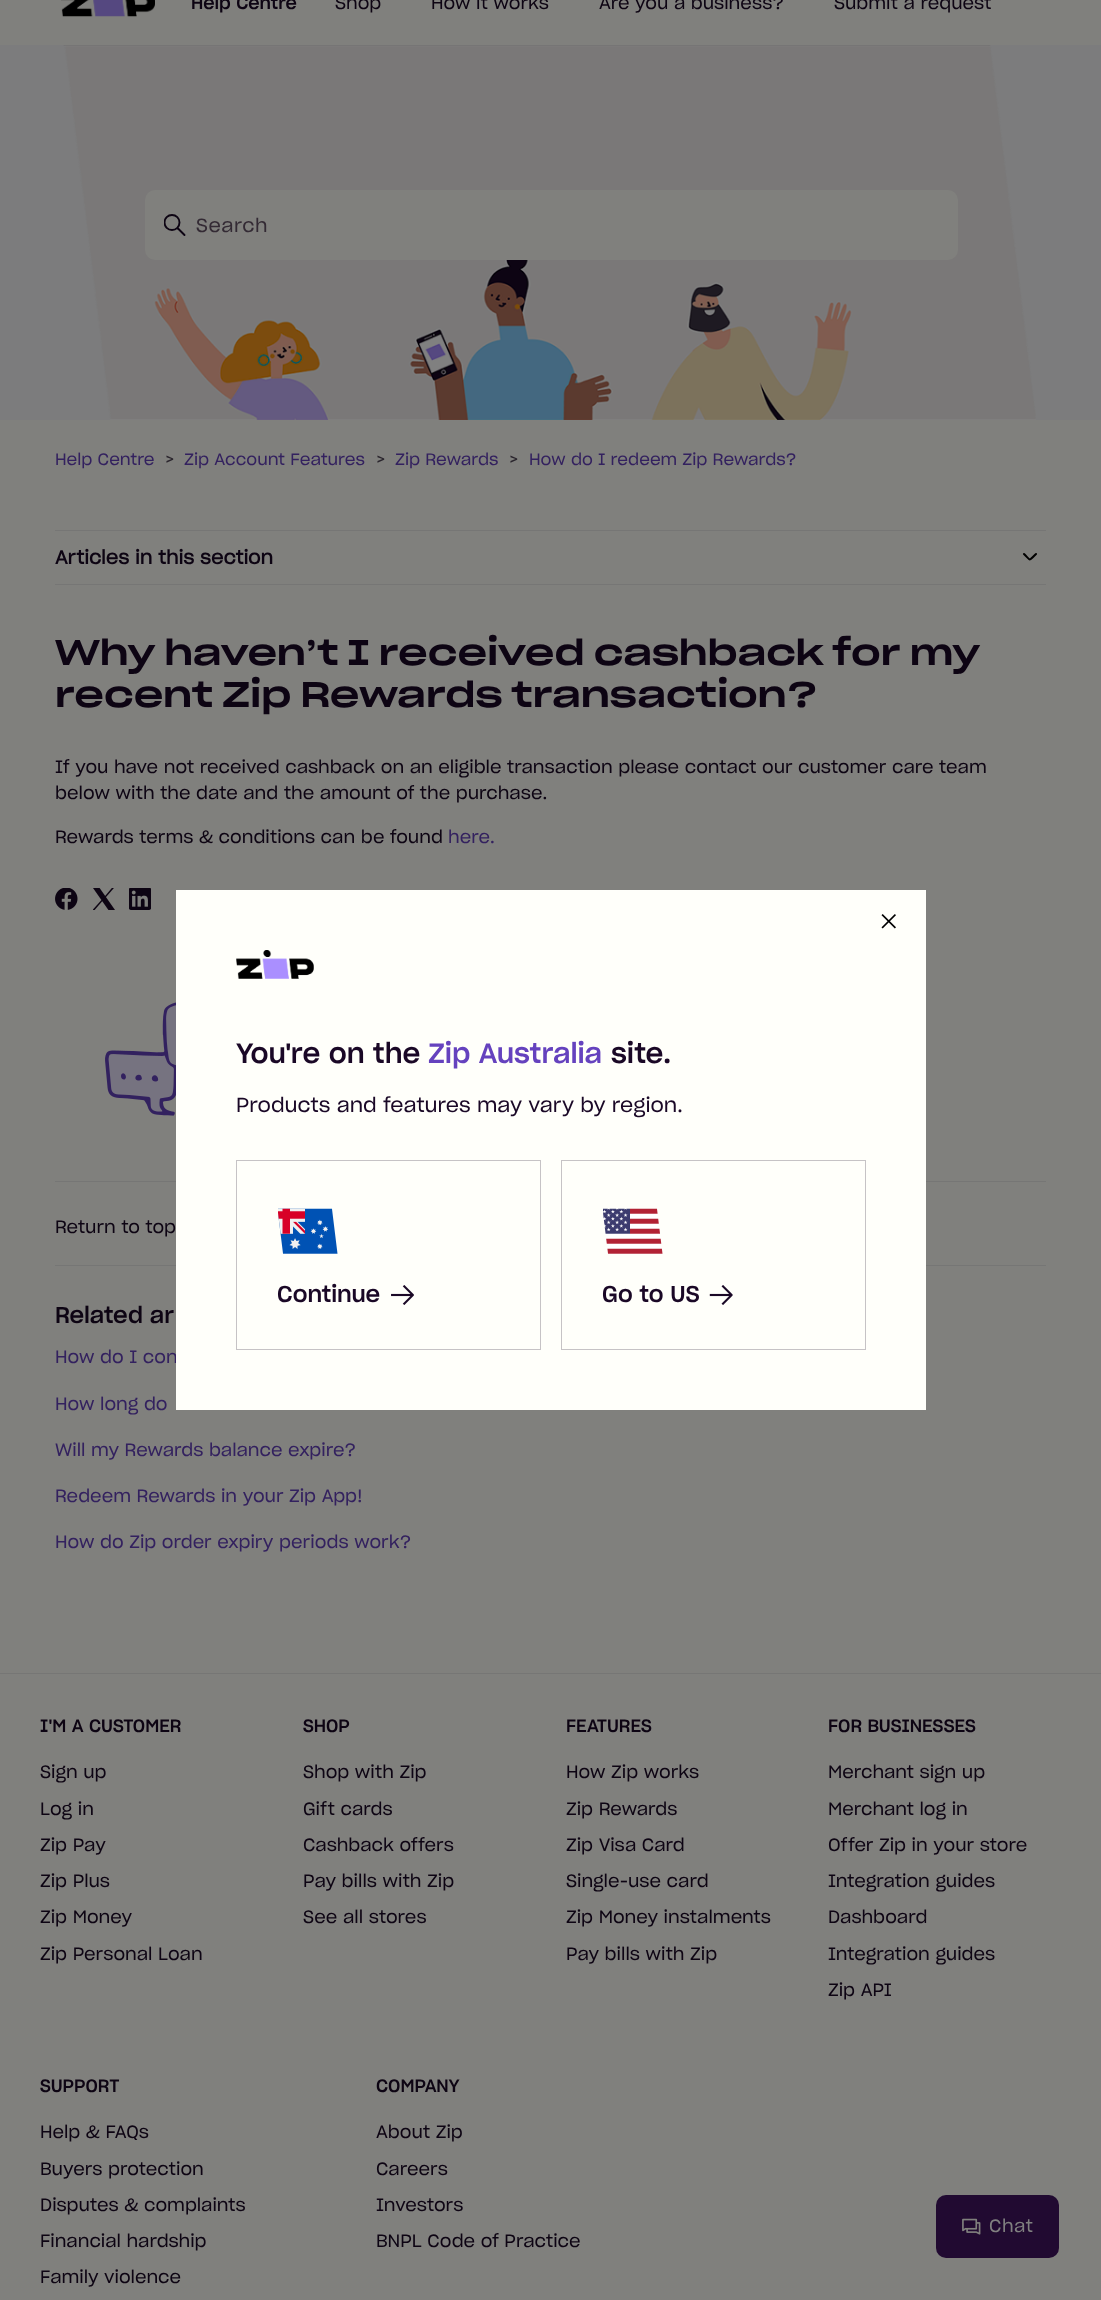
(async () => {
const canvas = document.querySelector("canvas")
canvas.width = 1101
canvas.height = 2300
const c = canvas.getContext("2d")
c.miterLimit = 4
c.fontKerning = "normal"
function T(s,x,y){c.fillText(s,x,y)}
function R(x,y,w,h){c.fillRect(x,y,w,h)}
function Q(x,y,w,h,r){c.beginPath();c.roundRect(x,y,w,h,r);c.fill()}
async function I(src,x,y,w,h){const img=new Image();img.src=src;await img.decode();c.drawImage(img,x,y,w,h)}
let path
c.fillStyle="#80807d"
R(0,0,1101,2300)
await I("1.png",61,0,94,17)
c.font="500 17.5px 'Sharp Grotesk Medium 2'"
c.fillStyle="#0d0413"
T("Help Centre",191,9)
c.font="17.5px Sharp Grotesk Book"
T("Shop",335,9)
T("How it works",431,9)
T("Are you a business?",599,9)
T("Submit a request",834,9)
c.fillStyle="#7c7c7d"
R(0,45,1101,375)
await I("2.png",63,45,973,375)
c.fillStyle="#80807d"
Q(145,190,813,70,10)
c.save()
c.beginPath()
c.rect(164,214,22,22)
c.clip()
c.beginPath()
c.arc(172,222.5,7.5,0,7)
c.strokeStyle="#0d0413"
c.lineWidth=1.9
c.stroke()
c.restore()
path = new Path2D("M184.5 235l-6.5-6.5")
c.strokeStyle="#0d0413"
c.lineWidth=1.9
c.lineCap="round"
c.stroke(path)
c.letterSpacing="0.5px"
c.font="18.75px Sharp Grotesk Book"
c.fillStyle="#332a34"
T("Search",196,232)
c.letterSpacing="0px"
c.font="16.25px Sharp Grotesk Book"
c.fillStyle="#33215f"
T("Help Centre",55,465)
c.fillStyle="#2a252d"
T(">",165,465)
c.fillStyle="#33215f"
T("Zip Account Features",184,465)
c.fillStyle="#2a252d"
T(">",376,465)
c.fillStyle="#33215f"
T("Zip Rewards",395,465)
c.fillStyle="#2a252d"
T(">",509,465)
c.fillStyle="#33215f"
T("How do I redeem Zip Rewards?",529,465)
c.fillStyle="#767675"
R(55,530,991,1)
R(55,584,991,1)
c.font="bold 18.75px Sharp Grotesk Book"
c.fillStyle="#0d0413"
T("Articles in this section",55,564)
path = new Path2D("M1024 554c7.5 7.5 4.5 7 12 0")
c.strokeStyle="#000"
c.lineWidth=2.1
c.stroke(path)
c.font="500 35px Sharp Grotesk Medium"
T("Why haven’t I received cashback for my",55,665)
T("recent Zip Rewards transaction?",55,707)
c.font="17.5px Sharp Grotesk Book"
T("If you have not received cashback on an eligible transaction please contact our customer care team",55,773)
T("below with the date and the amount of the purchase.",55,799)
T("Rewards terms & conditions can be found",55,843)
c.fillStyle="#33215f"
T("here.",448,843)
await I("3.png",55,888,23,22)
await I("4.png",93,888,22,22)
await I("5.png",129,888,22,22)
await I("6.png",105,1002,71,114)
c.fillStyle="#767675"
R(55,1181,991,1)
c.fillStyle="#0d0413"
T("Return to top",55,1233)
c.fillStyle="#767675"
R(55,1265,991,1)
c.font="500 22.5px 'Sharp Grotesk Medium 2'"
c.fillStyle="#0d0413"
T("Related ar",55,1323)
c.font="17.5px Sharp Grotesk Book"
c.fillStyle="#33215f"
T("How do I con",55,1363)
T("How long do",55,1410)
T("Will my Rewards balance expire?",55,1456)
T("Redeem Rewards in your Zip App!",55,1502)
T("How do Zip order expiry periods work?",55,1548)
c.fillStyle="#210a31"
Q(936,2195,123,63,10)
await I("7.png",962,2218,19,17)
c.letterSpacing="0.5px"
c.fillStyle="#808080"
T("Chat",989,2232)
c.fillStyle="#fffffa"
R(176,890,750,520)
await I("8.png",881,914,15,15)
await I("9.png",236,950,78,29)
c.letterSpacing="0px"
c.font="500 27.5px 'Sharp Grotesk Medium 2'"
c.fillStyle="#1a0826"
T("You're on the",236,1063)
c.fillStyle="#6542be"
T("Zip Australia",428,1063)
c.fillStyle="#1a0826"
T("site.",611,1063)
c.font="20px Sharp Grotesk Book"
T("Products and features may vary by region.",236,1112)
c.strokeStyle="#c6c3c5"
c.lineWidth=1
c.strokeRect(236.5,1160.5,304,189)
await I("10.png",278,1208,60,46)
c.font="500 22.5px 'Sharp Grotesk Medium 2'"
T("Continue",277,1302)
await I("11.png",391,1285,23,20)
c.strokeRect(561.5,1160.5,304,189)
await I("12.png",603,1208,60,46)
T("Go to US",602,1302)
await I("13.png",709,1285,24,20)
c.fillStyle="#767675"
R(0,1673,1101,1)
c.font="500 17.5px 'Sharp Grotesk Medium 2'"
c.fillStyle="#0d0413"
T("I'M A CUSTOMER",40,1732)
c.font="17.5px Sharp Grotesk Book"
T("Sign up",40,1778)
T("Log in",40,1815)
T("Zip Pay",40,1851)
T("Zip Plus",40,1887)
T("Zip Money",40,1923)
T("Zip Personal Loan",40,1960)
c.font="500 17.5px 'Sharp Grotesk Medium 2'"
T("SHOP",303,1732)
c.font="17.5px Sharp Grotesk Book"
T("Shop with Zip",303,1778)
T("Gift cards",303,1815)
T("Cashback offers",303,1851)
T("Pay bills with Zip",303,1887)
T("See all stores",303,1923)
c.font="500 17.5px 'Sharp Grotesk Medium 2'"
T("FEATURES",566,1732)
c.font="17.5px Sharp Grotesk Book"
T("How Zip works",566,1778)
T("Zip Rewards",566,1815)
T("Zip Visa Card",566,1851)
T("Single-use card",566,1887)
T("Zip Money instalments",566,1923)
T("Pay bills with Zip",566,1960)
c.font="500 17.5px 'Sharp Grotesk Medium 2'"
T("FOR BUSINESSES",828,1732)
c.font="17.5px Sharp Grotesk Book"
T("Merchant sign up",828,1778)
T("Merchant log in",828,1815)
T("Offer Zip in your store",828,1851)
T("Integration guides",828,1887)
T("Dashboard",828,1923)
T("Integration guides",828,1960)
T("Zip API",828,1996)
c.font="500 17.5px 'Sharp Grotesk Medium 2'"
T("SUPPORT",40,2092)
c.font="17.5px Sharp Grotesk Book"
T("Help & FAQs",40,2138)
T("Buyers protection",40,2175)
T("Disputes & complaints",40,2211)
T("Financial hardship",40,2247)
T("Family violence",40,2283)
c.font="500 17.5px 'Sharp Grotesk Medium 2'"
T("COMPANY",376,2092)
c.font="17.5px Sharp Grotesk Book"
T("About Zip",376,2138)
T("Careers",376,2175)
T("Investors",376,2211)
T("BNPL Code of Practice",376,2247)
})()
